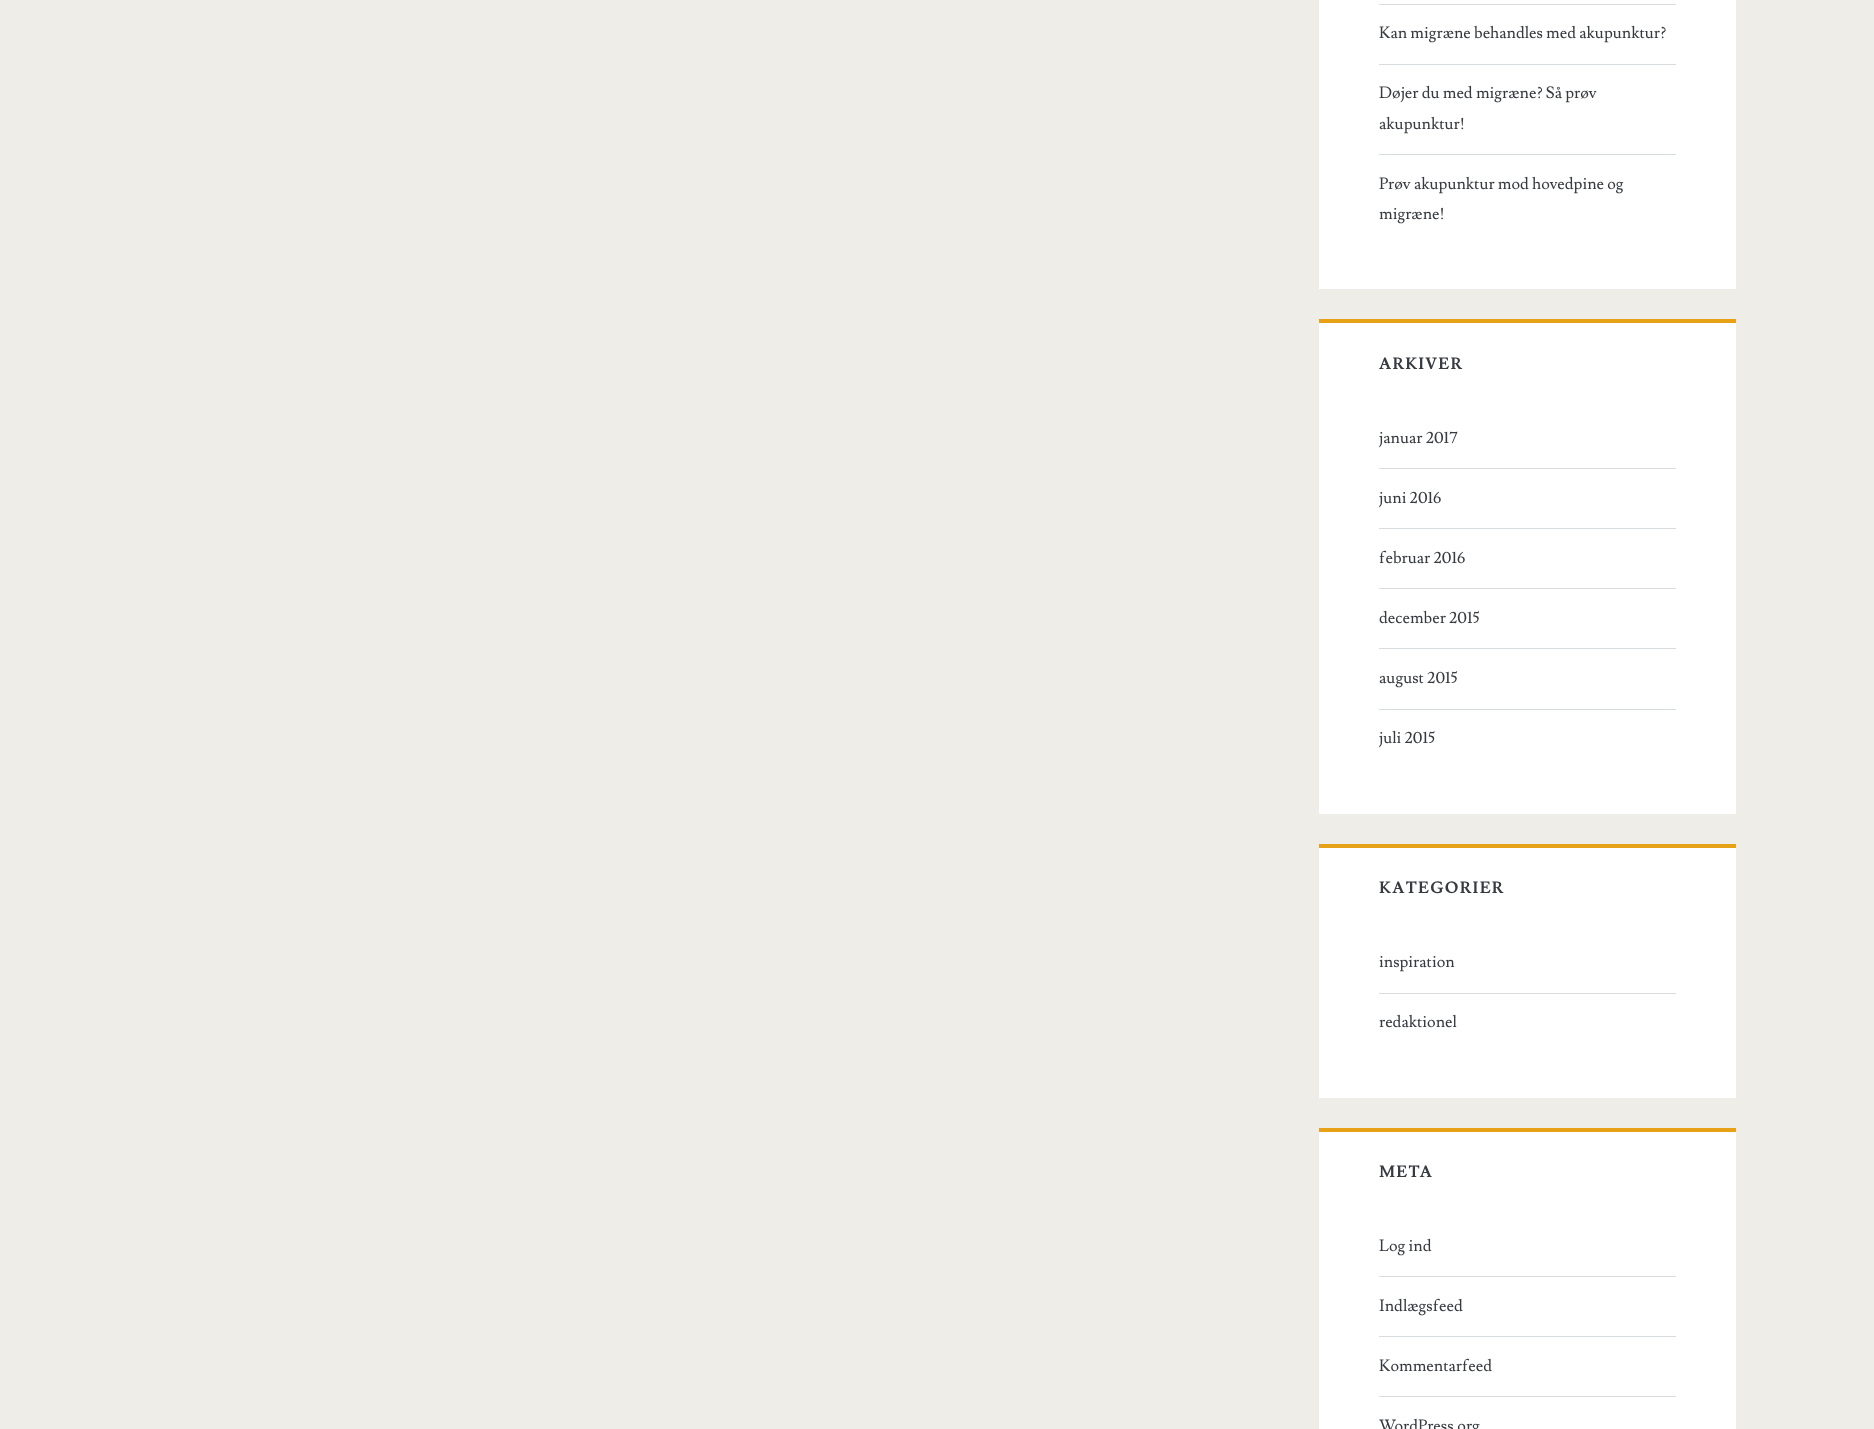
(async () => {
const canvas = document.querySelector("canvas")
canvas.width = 1874
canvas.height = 1429
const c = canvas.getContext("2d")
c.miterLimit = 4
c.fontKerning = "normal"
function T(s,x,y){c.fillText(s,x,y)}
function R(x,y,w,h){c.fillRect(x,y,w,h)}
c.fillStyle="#eeede8"
R(0,0,1874,1429)
c.fillStyle="#fff"
R(1319,0,417,289)
c.fillStyle="#d9dcdf"
R(1379,4,297,1)
R(1379,64,297,1)
c.font="16.25px Lusitana"
c.fillStyle="#373b41"
T("Kan migræne behandles med akupunktur?",1379,38)
c.fillStyle="#d9dcdf"
R(1379,154,297,1)
c.fillStyle="#373b41"
T("Døjer du med migræne? Så prøv",1379,98)
T("akupunktur!",1379,129)
T("Prøv akupunktur mod hovedpine og",1379,189)
T("migræne!",1379,219)
c.fillStyle="#fff"
R(1319,323,417,491)
c.fillStyle="#e6a117"
R(1319,319,417,4)
c.letterSpacing="1.25px"
c.font="bold 16.25px Lusitana"
c.fillStyle="#373b41"
T("ARKIVER",1379,369)
c.fillStyle="#d9dcdf"
R(1379,468,297,1)
c.letterSpacing="0px"
c.font="16.25px Lusitana"
c.fillStyle="#373b41"
T("januar 2017",1379,443)
c.fillStyle="#d9dcdf"
R(1379,528,297,1)
c.fillStyle="#373b41"
T("juni 2016",1379,503)
c.fillStyle="#d9dcdf"
R(1379,588,297,1)
c.fillStyle="#373b41"
T("februar 2016",1379,563)
c.fillStyle="#d9dcdf"
R(1379,648,297,1)
c.fillStyle="#373b41"
T("december 2015",1379,623)
c.fillStyle="#d9dcdf"
R(1379,709,297,1)
c.fillStyle="#373b41"
T("august 2015",1379,683)
T("juli 2015",1379,743)
c.fillStyle="#fff"
R(1319,848,417,250)
c.fillStyle="#e6a117"
R(1319,844,417,4)
c.letterSpacing="1.25px"
c.font="bold 16.25px Lusitana"
c.fillStyle="#373b41"
T("KATEGORIER",1379,893)
c.fillStyle="#d9dcdf"
R(1379,993,297,1)
c.letterSpacing="0px"
c.font="16.25px Lusitana"
c.fillStyle="#373b41"
T("inspiration",1379,967)
T("redaktionel",1379,1027)
c.fillStyle="#fff"
R(1319,1132,417,297)
c.fillStyle="#e6a117"
R(1319,1128,417,4)
c.letterSpacing="1.25px"
c.font="bold 16.25px Lusitana"
c.fillStyle="#373b41"
T("META",1379,1177)
c.fillStyle="#d9dcdf"
R(1379,1276,297,1)
c.letterSpacing="0px"
c.font="16.25px Lusitana"
c.fillStyle="#373b41"
T("Log ind",1379,1251)
c.fillStyle="#d9dcdf"
R(1379,1336,297,1)
c.fillStyle="#373b41"
T("Indlægsfeed",1379,1311)
c.fillStyle="#d9dcdf"
R(1379,1396,297,1)
c.fillStyle="#373b41"
T("Kommentarfeed",1379,1371)
T("WordPress.org",1379,1431)
})()
